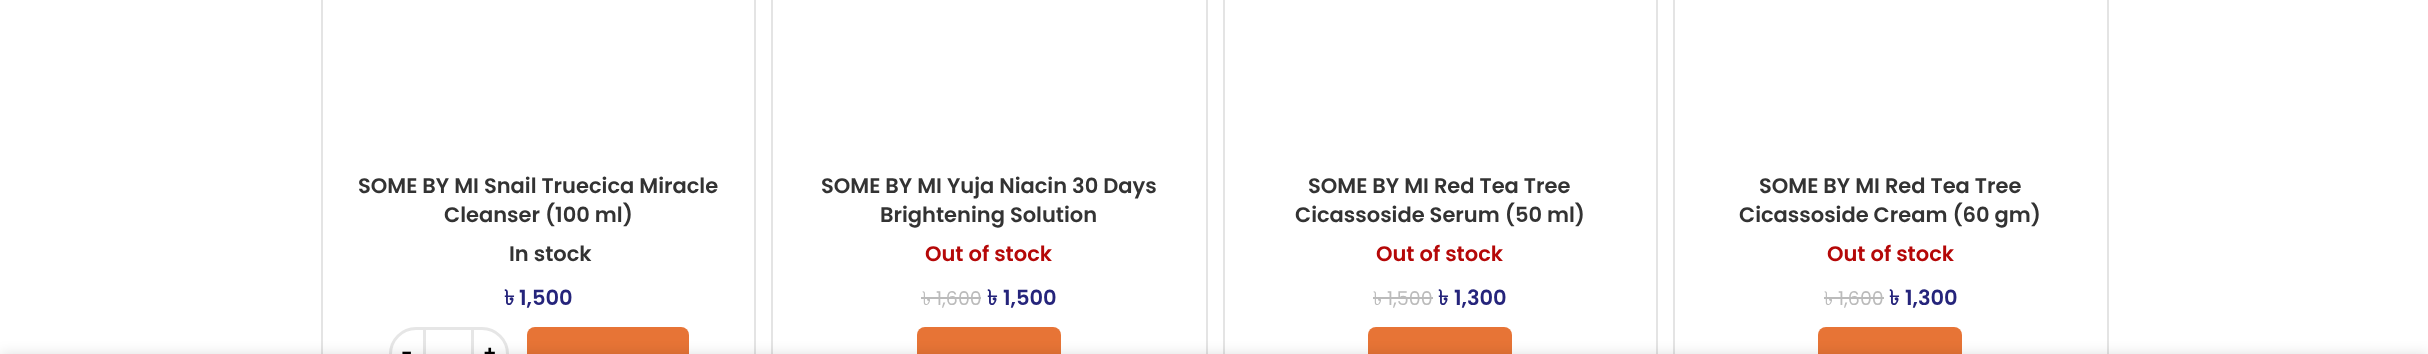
(async () => {
const canvas = document.querySelector("canvas")
canvas.width = 2428
canvas.height = 354
const c = canvas.getContext("2d")
c.miterLimit = 4
c.fontKerning = "normal"
function T(s,x,y){c.fillText(s,x,y)}
function R(x,y,w,h){c.fillRect(x,y,w,h)}
function Q(x,y,w,h,r){c.beginPath();c.roundRect(x,y,w,h,r);c.fill()}
let path
c.fillStyle="#fff"
R(0,0,2428,354)
c.strokeStyle="#e4e4e4"
c.lineWidth=2
c.strokeRect(322,-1,433,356)
c.font="600 21px Poppins"
c.fillStyle="#333"
T("SOME BY MI Snail Truecica Miracle",358,193)
T("Cleanser (100 ml)",444,222)
T("In stock",509,261)
c.font="bold 21px Lohit Bengali"
c.fillStyle="#25247b"
T("৳",504,305)
c.font="600 21px Poppins"
T("1,500",519,305)
c.fillStyle="#e6e6e6"
R(426,327,45,3)
path = new Path2D("M416 328.5h8.5v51h-8.5c-14 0-25.5-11.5-25.5-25.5c0-14 11.5-25.5 25.5-25.5z")
c.strokeStyle="#e6e6e6"
c.lineWidth=3
c.stroke(path)
c.font="600 20px Poppins"
c.fillStyle="#000"
T("-",401,360)
path = new Path2D("M472.5 328.5h9.5c14 0 25.5 11.5 25.5 25.5c0 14-11.5 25.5-25.5 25.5h-9.5z")
c.stroke(path)
T("+",483,360)
c.fillStyle="#e77436"
Q(527,327,162,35,8)
c.strokeStyle="#e4e4e4"
c.lineWidth=2
c.strokeRect(772,-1,435,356)
c.font="600 21px Poppins"
c.fillStyle="#333"
T("SOME BY MI Yuja Niacin 30 Days",821,193)
T("Brightening Solution",880,222)
c.fillStyle="#b50808"
T("Out of stock",925,261)
c.font="19px Lohit Bengali"
c.fillStyle="#bbb"
T("৳",922,305)
R(921,297,15,2)
c.font="19px Poppins"
T("1,600",936,305)
R(936,297,45,2)
c.font="bold 21px Lohit Bengali"
c.fillStyle="#25247b"
T("৳",987,305)
c.font="600 21px Poppins"
T("1,500",1003,305)
c.fillStyle="#e77436"
Q(917,327,144,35,8)
c.strokeRect(1224,-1,433,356)
c.fillStyle="#333"
T("SOME BY MI Red Tea Tree",1308,193)
T("Cicassoside Serum (50 ml)",1295,222)
c.fillStyle="#b50808"
T("Out of stock",1376,261)
c.font="19px Lohit Bengali"
c.fillStyle="#bbb"
T("৳",1373,305)
R(1373,297,15,2)
c.font="19px Poppins"
T("1,500",1387,305)
R(1388,297,45,2)
c.font="bold 21px Lohit Bengali"
c.fillStyle="#25247b"
T("৳",1438,305)
c.font="600 21px Poppins"
T("1,300",1454,305)
c.fillStyle="#e77436"
Q(1368,327,144,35,8)
c.strokeRect(1674,-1,434,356)
c.fillStyle="#333"
T("SOME BY MI Red Tea Tree",1759,193)
T("Cicassoside Cream (60 gm)",1739,222)
c.fillStyle="#b50808"
T("Out of stock",1827,261)
c.font="19px Lohit Bengali"
c.fillStyle="#bbb"
T("৳",1824,305)
R(1824,297,14,2)
c.font="19px Poppins"
T("1,600",1838,305)
R(1838,297,46,2)
c.font="bold 21px Lohit Bengali"
c.fillStyle="#25247b"
T("৳",1889,305)
c.font="600 21px Poppins"
T("1,300",1905,305)
c.fillStyle="#e77436"
Q(1818,327,144,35,8)
c.fillStyle="#0000001f"
c.filter="blur(7px)"
c.beginPath()
c.rect(0,354,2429,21)
c.fill()
c.filter="none"
})()
